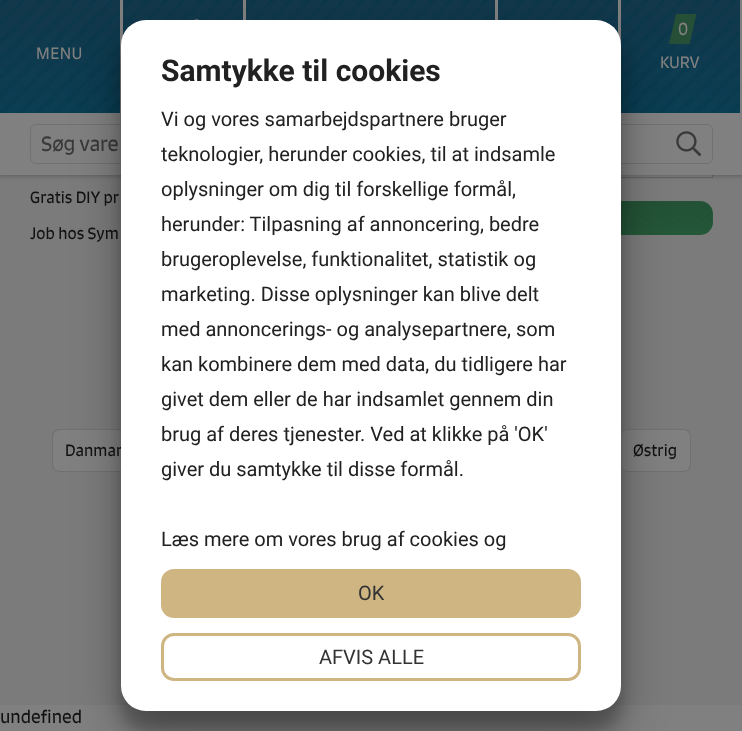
(async () => {
const canvas = document.querySelector("canvas")
canvas.width = 742
canvas.height = 731
const c = canvas.getContext("2d")
c.miterLimit = 4
c.fontKerning = "normal"
function T(s,x,y){c.fillText(s,x,y)}
function R(x,y,w,h){c.fillRect(x,y,w,h)}
function Q(x,y,w,h,r){c.beginPath();c.roundRect(x,y,w,h,r);c.fill()}
async function I(src,x,y,w,h){const img=new Image();img.src=src;await img.decode();c.drawImage(img,x,y,w,h)}
let path
c.fillStyle="#808080"
R(0,0,742,731)
c.fillStyle="#7b7b7b"
R(0,175,742,530)
c.fillStyle="#808080"
R(621,175,91,2)
c.strokeStyle="#666"
c.strokeRect(385.5,-.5,327,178)
c.fillStyle="#000"
c.filter="blur(4.5px)"
c.beginPath()
c.rect(-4,-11,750,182)
c.fill()
c.filter="none"
await I("1.png",0,0,740,113)
c.fillStyle="#808080"
R(120,0,3,113)
c.letterSpacing="0.5px"
c.font="16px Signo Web"
T("MENU",36,59)
R(243,0,3,20)
await I("2.png",194,18,6,2)
R(495,0,3,20)
R(618,0,3,45)
R(740,0,2,113)
c.fillStyle="#264f37"
path = new Path2D("M696 16l-6.5 28h-20.5l7-30h20z")
c.fill(path)
c.letterSpacing="-0.25px"
c.font="17.5px Signo Web"
c.fillStyle="#808080"
T("0",678,35)
c.font="16px Signo Web"
T("KURV",660,68)
R(0,113,742,62)
c.beginPath()
c.roundRect(30.5,124.5,682,39,5.5)
c.strokeStyle="#717171"
c.stroke()
c.font="20px Signo Web"
c.fillStyle="#393939"
T("Søg vare",41,151)
await I("3.png",676,131,25,25)
c.letterSpacing="0px"
c.font="15.75px Signo Web"
c.fillStyle="#111"
T("Gratis DIY pr",30,203)
T("Job hos Sym",30,239)
c.fillStyle="#255739"
Q(385,201,328,34,13)
await I("4.png",621,201,91,30)
c.fillStyle="#000"
c.filter="blur(1px)"
c.beginPath()
c.roundRect(54,431,89,39,5)
c.fill()
c.filter="none"
c.fillStyle="#808080"
Q(53,430,91,41,6)
c.fillStyle="#111"
T("Danmar",65,456)
c.fillStyle="#000"
c.filter="blur(1px)"
c.beginPath()
c.roundRect(623,431,66,39,5)
c.fill()
c.filter="none"
c.fillStyle="#808080"
Q(621,430,69,41,6)
c.fillStyle="#111"
T("Østrig",633,456)
c.fillStyle="#00000038"
c.filter="blur(7.5px)"
c.beginPath()
c.roundRect(121,39,500,691,25)
c.fill()
c.filter="none"
c.fillStyle="#0000004d"
c.filter="blur(24px)"
c.beginPath()
c.roundRect(121,44,500,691,25)
c.fill()
c.filter="none"
c.fillStyle="#fff"
Q(121,20,500,691,25)
c.font="bold 30px Roboto"
c.fillStyle="#212121"
T("Samtykke til cookies",161,81)
c.font="20px Roboto"
T("Vi og vores samarbejdspartnere bruger",161,126)
T("teknologier, herunder cookies, til at indsamle",161,161)
T("oplysninger om dig til forskellige formål,",161,196)
T("herunder: Tilpasning af annoncering, bedre",161,231)
T("brugeroplevelse, funktionalitet, statistik og",161,266)
T("marketing. Disse oplysninger kan blive delt",161,301)
T("med annoncerings- og analysepartnere, som",161,336)
T("kan kombinere dem med data, du tidligere har",161,371)
T("givet dem eller de har indsamlet gennem din",161,406)
T("brug af deres tjenester. Ved at klikke på 'OK'",161,441)
T("giver du samtykke til disse formål.",161,476)
T("Læs mere om vores brug af cookies og",161,546)
c.fillStyle="#ceb582"
c.beginPath()
c.roundRect(162.5,570.5,417,46,11.5)
c.fill()
c.strokeStyle="#ceb582"
c.lineWidth=3
c.stroke()
c.fillStyle="#333"
T("OK",358,600)
c.beginPath()
c.roundRect(162.5,634.5,417,45,11.5)
c.stroke()
T("AFVIS ALLE",319,664)
c.font="17.5px Signo Web"
c.fillStyle="#111"
T("undefined",0,723)
})()
